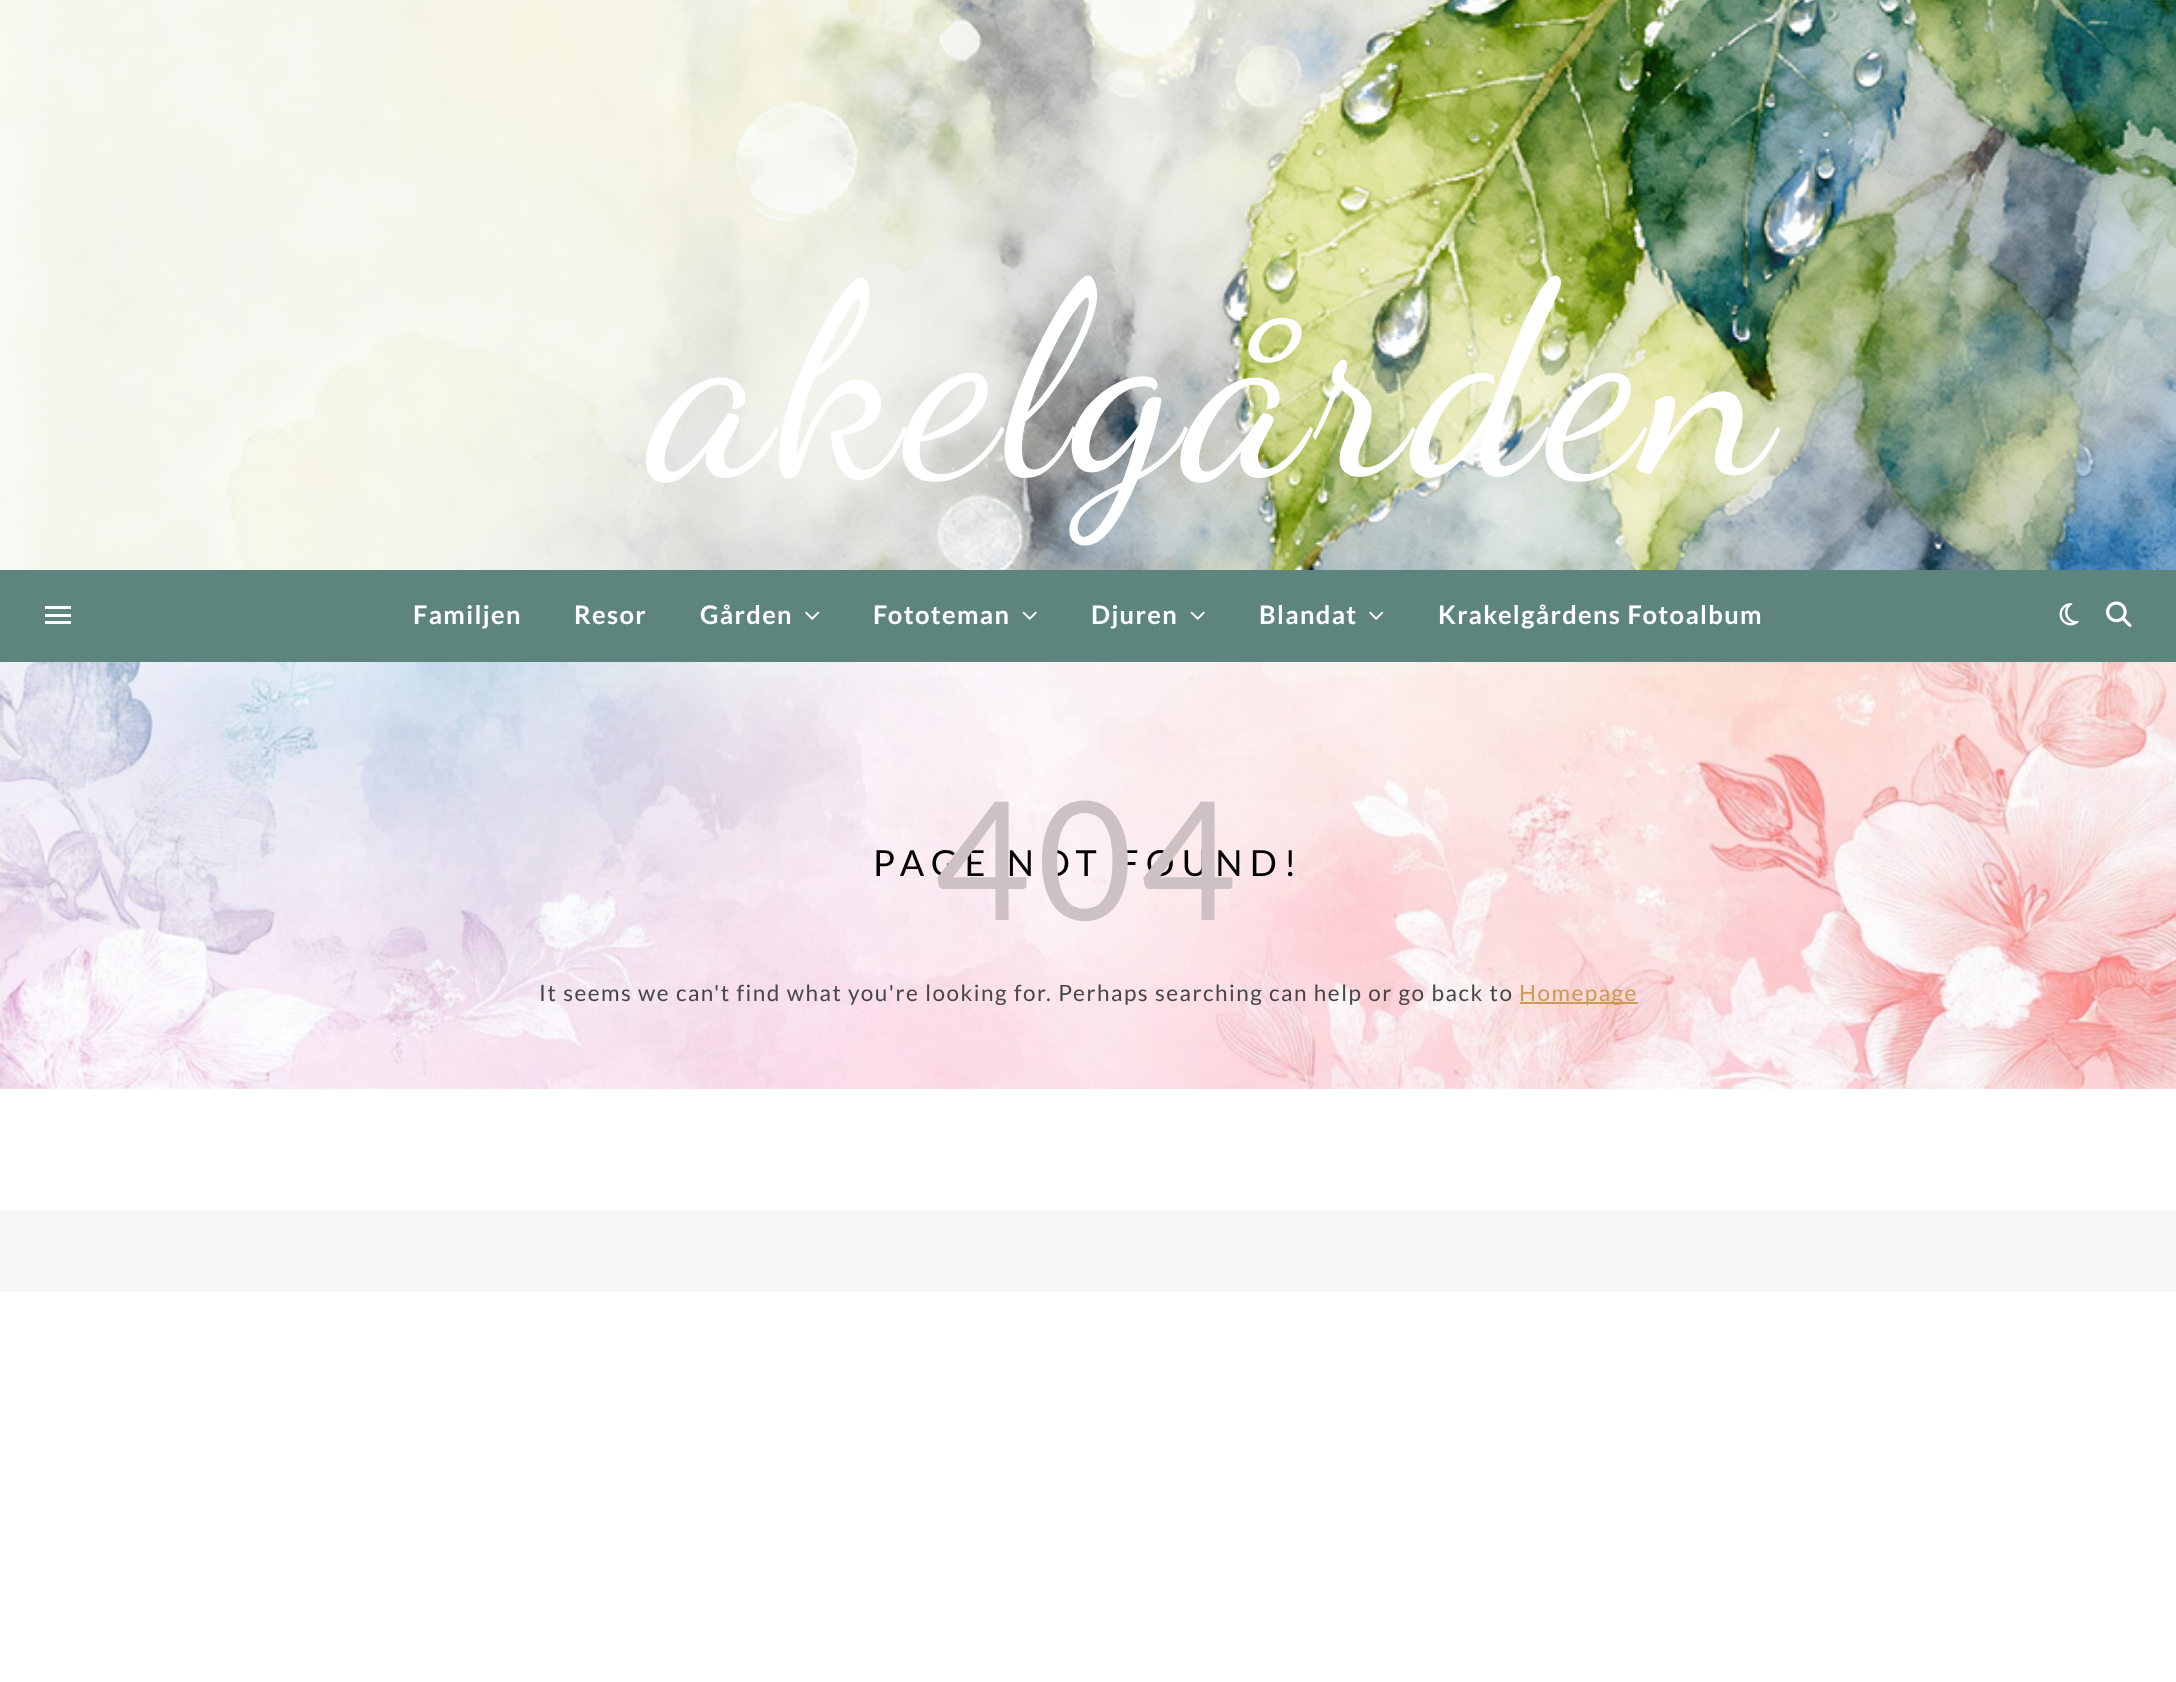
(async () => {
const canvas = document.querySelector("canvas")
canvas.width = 2176
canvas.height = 1682
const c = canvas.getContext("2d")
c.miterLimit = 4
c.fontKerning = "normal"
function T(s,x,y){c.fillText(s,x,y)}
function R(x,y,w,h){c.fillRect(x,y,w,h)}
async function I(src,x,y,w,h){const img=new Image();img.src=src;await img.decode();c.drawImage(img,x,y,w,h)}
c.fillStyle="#fff"
R(0,0,2176,1682)
await I("1.png",0,662,2176,428)
await I("2.png",0,0,2176,570)
c.letterSpacing="7.5px"
c.font="270px Dancing Script"
T("akelgården",653,470)
c.fillStyle="#5e847e"
R(0,570,2176,92)
c.fillStyle="#fff"
R(45,606,26,3)
R(45,614,26,3)
R(45,621,26,3)
c.letterSpacing="1.35px"
c.font="bold 25.5px Lato"
T("Familjen",413,624)
T("Resor",574,624)
T("Gården",700,624)
await I("3.png",805,611,15,9)
T("Fototeman",873,624)
await I("4.png",1022,611,15,9)
T("Djuren",1091,624)
await I("4.png",1190,611,15,9)
T("Blandat",1259,624)
await I("3.png",1369,611,15,9)
T("Krakelgårdens Fotoalbum",1438,624)
await I("5.png",2059,603,20,23)
await I("6.png",2106,601,26,26)
c.letterSpacing="7.25px"
c.font="36px Lato"
c.fillStyle="#030303"
T("PAGE NOT FOUND!",873,876)
c.font="165px Lato"
c.fillStyle="#cdc1c4"
T("404",934,920)
c.letterSpacing="1.5px"
c.font="22.5px Lato"
c.fillStyle="#464646"
T("It seems we can't find what you're looking for. Perhaps searching can help or go back to",539,1001)
c.fillStyle="#ca9b52"
R(1520,1002,118,2)
T("Homepage",1519,1001)
c.fillStyle="#f6f6f6"
R(0,1211,2176,81)
})()
